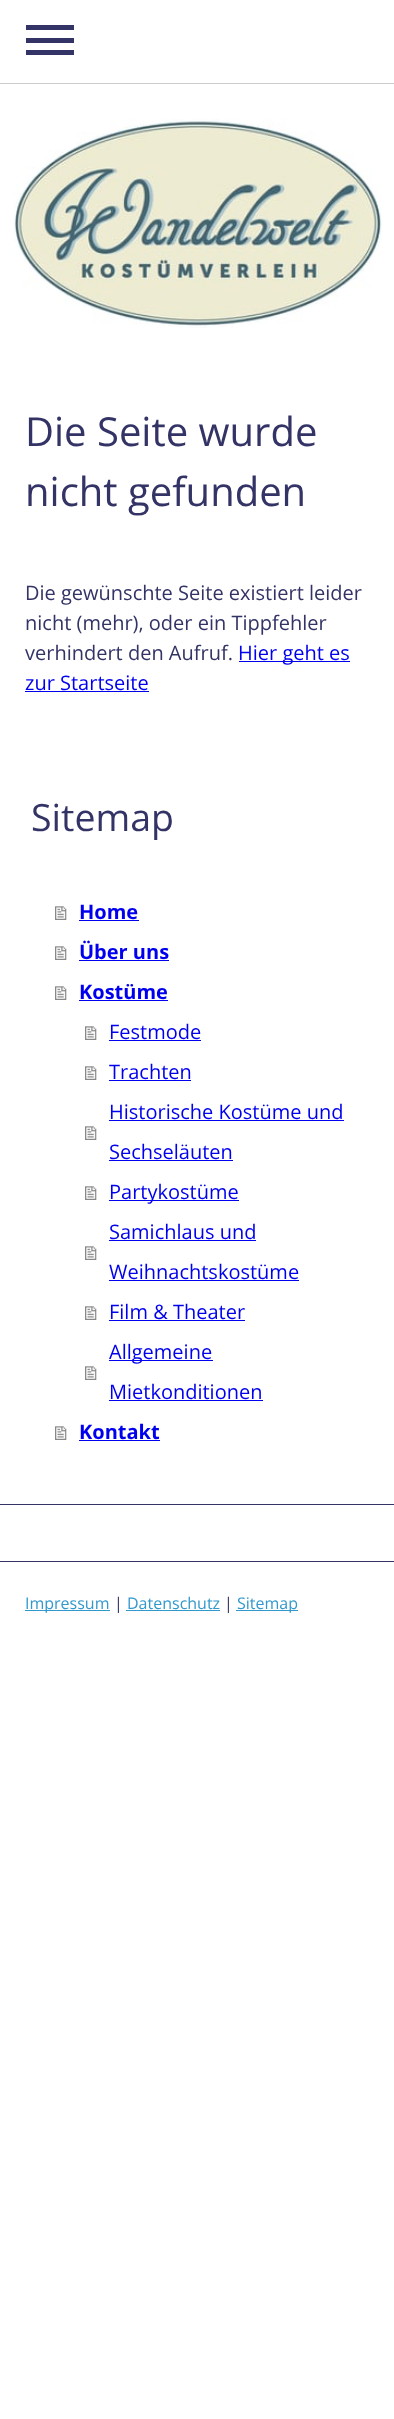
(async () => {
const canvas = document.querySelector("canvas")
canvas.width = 394
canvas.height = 2419
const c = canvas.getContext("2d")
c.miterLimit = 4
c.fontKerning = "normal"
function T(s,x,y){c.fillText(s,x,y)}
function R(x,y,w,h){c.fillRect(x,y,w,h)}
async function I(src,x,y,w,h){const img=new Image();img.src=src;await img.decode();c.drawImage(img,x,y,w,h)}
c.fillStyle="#fff"
R(0,0,394,2419)
c.fillStyle="#336"
R(26,38,48,5)
R(26,25,48,5)
R(26,50,48,5)
c.fillStyle="#ccc"
R(0,83,394,1)
await I("1.png",13,119,369,209)
c.font="40px Open Sans"
c.fillStyle="#336"
T("Die Seite wurde",25,446)
T("nicht gefunden",25,506)
c.font="20px Open Sans"
T("Die gewünschte Seite existiert leider",25,600)
T("nicht (mehr), oder ein Tippfehler",25,630)
T("verhindert den Aufruf.",25,660)
c.fillStyle="#00e"
R(239,661,111,1)
T("Hier geht es",238,660)
T("zur Startseite",25,690)
R(25,691,124,1)
c.font="37.5px Open Sans"
c.fillStyle="#336"
T("Sitemap",31,831)
await I("2.png",55,906,12,14)
c.font="bold 20px Open Sans"
c.fillStyle="#00e"
T("Home",79,919)
R(79,920,60,1)
await I("2.png",55,946,12,14)
T("Über uns",79,959)
R(79,960,90,1)
await I("2.png",55,986,12,14)
T("Kostüme",79,999)
R(79,1000,89,1)
await I("3.png",85,1026,12,14)
c.font="20px Open Sans"
T("Festmode",109,1039)
R(109,1040,92,1)
await I("2.png",85,1066,12,14)
T("Trachten",109,1079)
R(109,1080,82,1)
await I("2.png",85,1126,12,14)
T("Historische Kostüme und",109,1119)
R(109,1120,235,1)
T("Sechseläuten",109,1159)
R(109,1160,124,1)
await I("2.png",85,1186,12,14)
R(109,1200,130,1)
T("Partykostüme",109,1199)
await I("2.png",85,1246,12,14)
T("Samichlaus und",109,1239)
R(109,1240,147,1)
T("Weihnachtskostüme",109,1279)
R(109,1280,190,1)
await I("2.png",85,1306,12,14)
T("Film & Theater",109,1319)
R(109,1320,136,1)
await I("2.png",85,1366,12,14)
R(109,1360,104,1)
T("Allgemeine",109,1359)
T("Mietkonditionen",109,1399)
R(109,1400,154,1)
await I("2.png",55,1426,12,14)
c.font="bold 20px Open Sans"
T("Kontakt",79,1439)
R(79,1440,81,1)
c.fillStyle="#336"
R(0,1504,394,1)
R(0,1561,394,1)
c.fillStyle="#39c"
R(25,1610,85,1)
c.font="16px Open Sans"
T("Impressum",25,1609)
c.fillStyle="#336"
T("|",114,1609)
c.fillStyle="#39c"
T("Datenschutz",127,1609)
R(126,1610,94,1)
c.fillStyle="#336"
T("|",224,1609)
c.fillStyle="#39c"
R(236,1610,62,1)
T("Sitemap",237,1609)
})()
